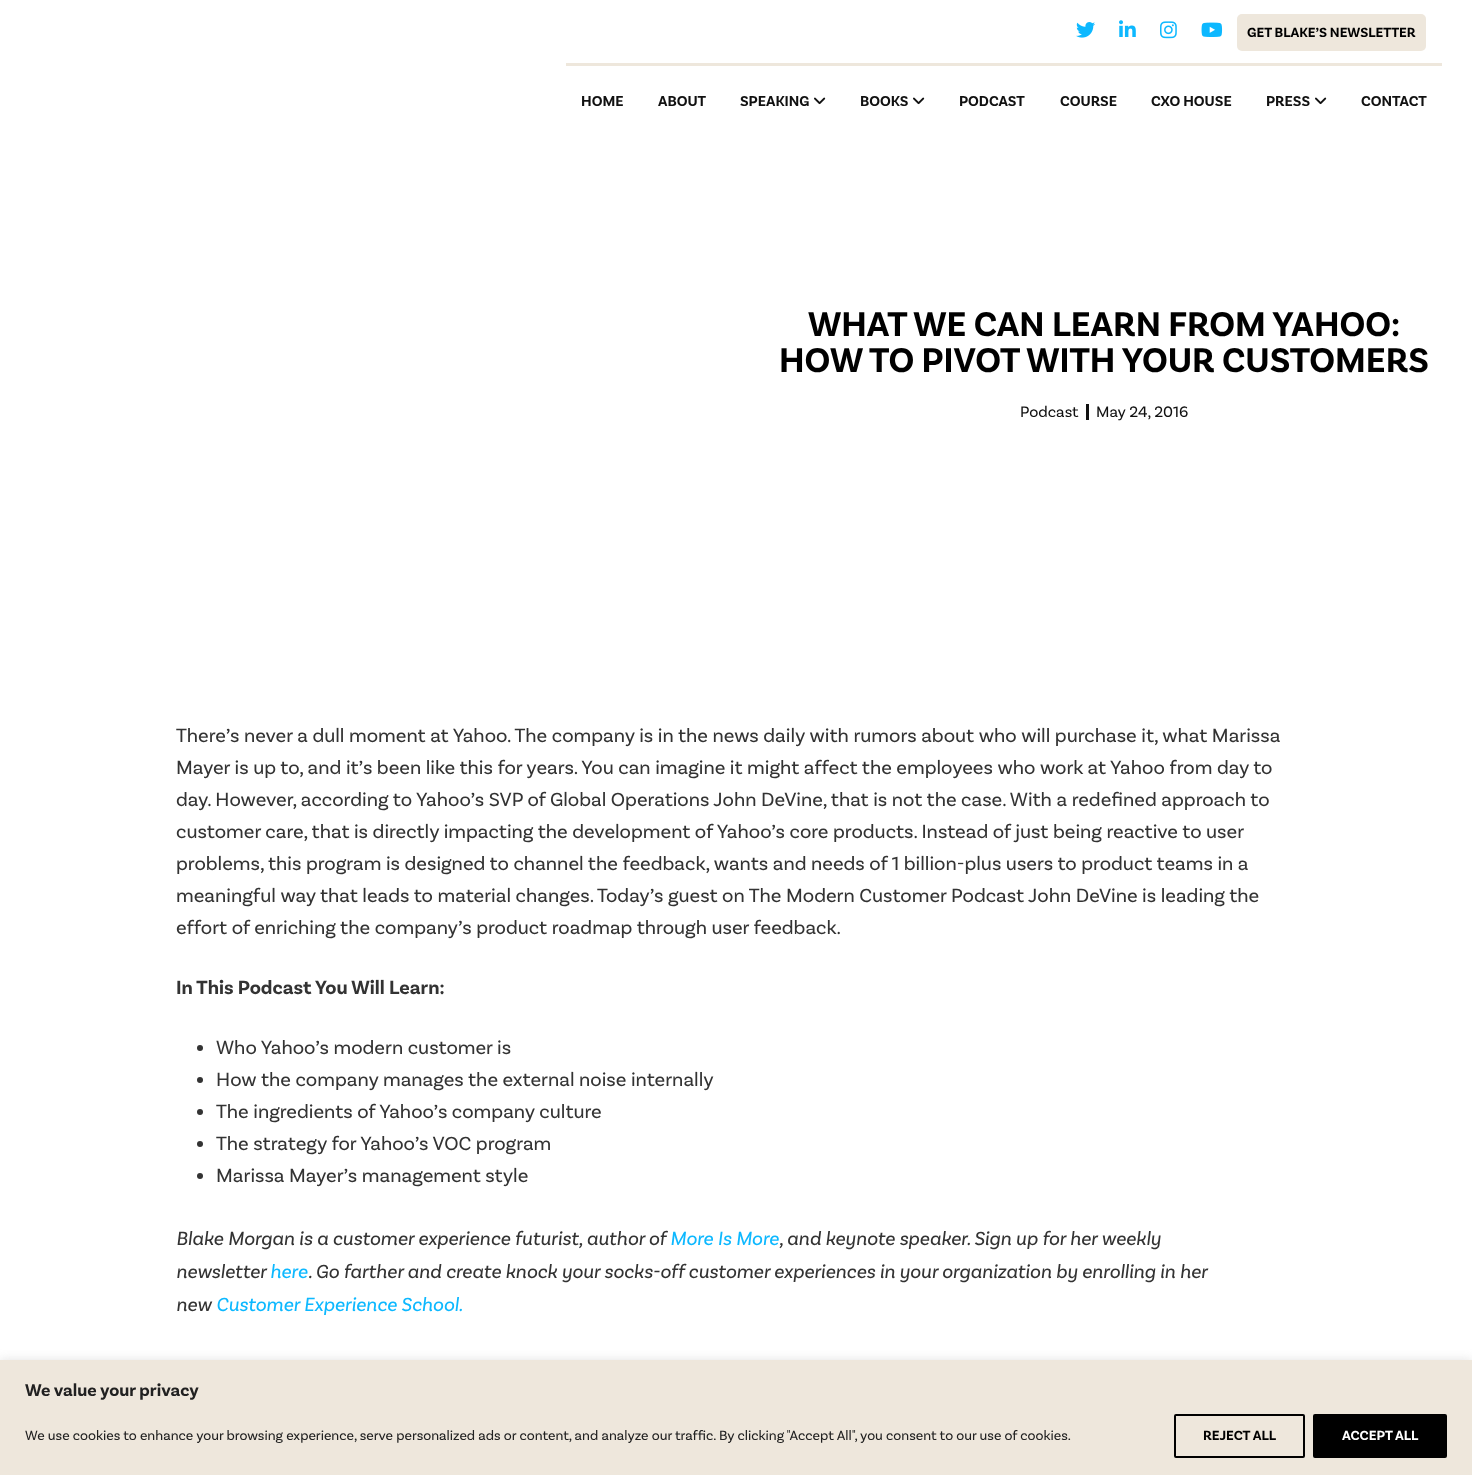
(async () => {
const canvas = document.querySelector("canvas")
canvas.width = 1472
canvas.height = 1475
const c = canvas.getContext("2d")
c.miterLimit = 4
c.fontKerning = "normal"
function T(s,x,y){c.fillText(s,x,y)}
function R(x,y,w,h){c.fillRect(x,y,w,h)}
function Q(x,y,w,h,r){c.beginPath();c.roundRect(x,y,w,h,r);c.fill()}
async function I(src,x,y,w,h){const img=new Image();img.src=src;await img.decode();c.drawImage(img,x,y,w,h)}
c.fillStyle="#fff"
R(0,0,1472,1475)
await I("1.png",1076,22,19,16)
await I("2.png",1119,20,17,17)
await I("3.png",1160,21,17,18)
await I("4.png",1201,22,22,15)
c.fillStyle="#eee7dc"
Q(1237,14,189,37,5)
c.font="bold 14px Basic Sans"
c.fillStyle="#000"
T("GET BLAKE’S NEWSLETTER",1247,37)
c.fillStyle="#eee7dc"
R(566,63,876,3)
c.font="bold 15px Basic Sans"
c.fillStyle="#111"
T("HOME",581,106)
T("ABOUT",658,106)
T("SPEAKING",740,106)
await I("5.png",814,97,12,8)
T("BOOKS",860,106)
await I("5.png",913,97,12,8)
T("PODCAST",959,106)
T("COURSE",1060,106)
T("CXO HOUSE",1151,106)
T("PRESS",1266,106)
await I("5.png",1315,97,12,8)
T("CONTACT",1361,106)
c.font="bold 36px Basic Sans"
c.fillStyle="#000"
T("WHAT WE CAN LEARN FROM YAHOO:",808,336)
T("HOW TO PIVOT WITH YOUR CUSTOMERS",779,372)
c.font="16px Basic Sans"
c.fillStyle="#111"
T("Podcast",1020,417)
R(1086,404,3,16)
T("May 24, 2016",1096,417)
c.font="20px Basic Sans"
c.fillStyle="#333"
T("There’s never a dull moment at Yahoo. The company is in the news daily with rumors about who will purchase it, what Marissa",176,742)
T("Mayer is up to, and it’s been like this for years. You can imagine it might affect the employees who work at Yahoo from day to",176,774)
T("day. However, according to Yahoo’s SVP of Global Operations John DeVine, that is not the case. With a redefined approach to",176,806)
T("customer care, that is directly impacting the development of Yahoo’s core products. Instead of just being reactive to user",176,838)
T("problems, this program is designed to channel the feedback, wants and needs of 1 billion-plus users to product teams in a",176,870)
T("meaningful way that leads to material changes. Today’s guest on The Modern Customer Podcast John DeVine is leading the",176,902)
T("effort of enriching the company’s product roadmap through user feedback.",176,934)
c.font="bold 20px Basic Sans"
T("In This Podcast You Will Learn:",176,994)
c.beginPath()
c.arc(200,1048,3,0,7)
c.fill()
c.font="20px Basic Sans"
T("Who Yahoo’s modern customer is",216,1054)
c.beginPath()
c.arc(200,1080,3,0,7)
c.fill()
T("How the company manages the external noise internally",216,1086)
c.beginPath()
c.arc(200,1112,3,0,7)
c.fill()
T("The ingredients of Yahoo’s company culture",216,1118)
c.beginPath()
c.arc(200,1144,3,0,7)
c.fill()
T("The strategy for Yahoo’s VOC program",216,1150)
c.beginPath()
c.arc(200,1176,3,0,7)
c.fill()
T("Marissa Mayer’s management style",216,1182)
c.font="italic 20px Basic Sans"
T("Blake Morgan is a customer experience futurist, author of",176,1245)
c.fillStyle="#0db8ff"
T("More Is More",670,1245)
c.fillStyle="#333"
T(", and keynote speaker. Sign up for her weekly",779,1245)
T("newsletter",176,1278)
c.fillStyle="#0db8ff"
T("here",270,1278)
c.fillStyle="#333"
T(". Go farther and create knock your socks-off customer experiences in your organization by enrolling in her",308,1278)
T("new",176,1311)
c.fillStyle="#0db8ff"
T("Customer Experience School.",216,1311)
c.fillStyle="#acabab4d"
c.filter="blur(5px)"
c.beginPath()
c.rect(0,1359,1472,115)
c.fill()
c.filter="none"
c.fillStyle="#eee7dc"
R(0,1360,1472,115)
c.font="bold 18px Basic Sans"
c.fillStyle="#212121"
T("We value your privacy",25,1396)
c.font="14px Basic Sans"
T("We use cookies to enhance your browsing experience, serve personalized ads or content, and analyze our traffic. By clicking \"Accept All\", you consent to our use of cookies.",25,1440)
c.beginPath()
c.roundRect(1175,1415,129,42,1)
c.strokeStyle="#000"
c.lineWidth=2
c.stroke()
c.font="bold 14px Basic Sans"
c.fillStyle="#000"
T("REJECT ALL",1203,1440)
c.beginPath()
c.roundRect(1314,1415,132,42,1)
c.fill()
c.stroke()
c.fillStyle="#fff"
T("ACCEPT ALL",1342,1440)
})()
